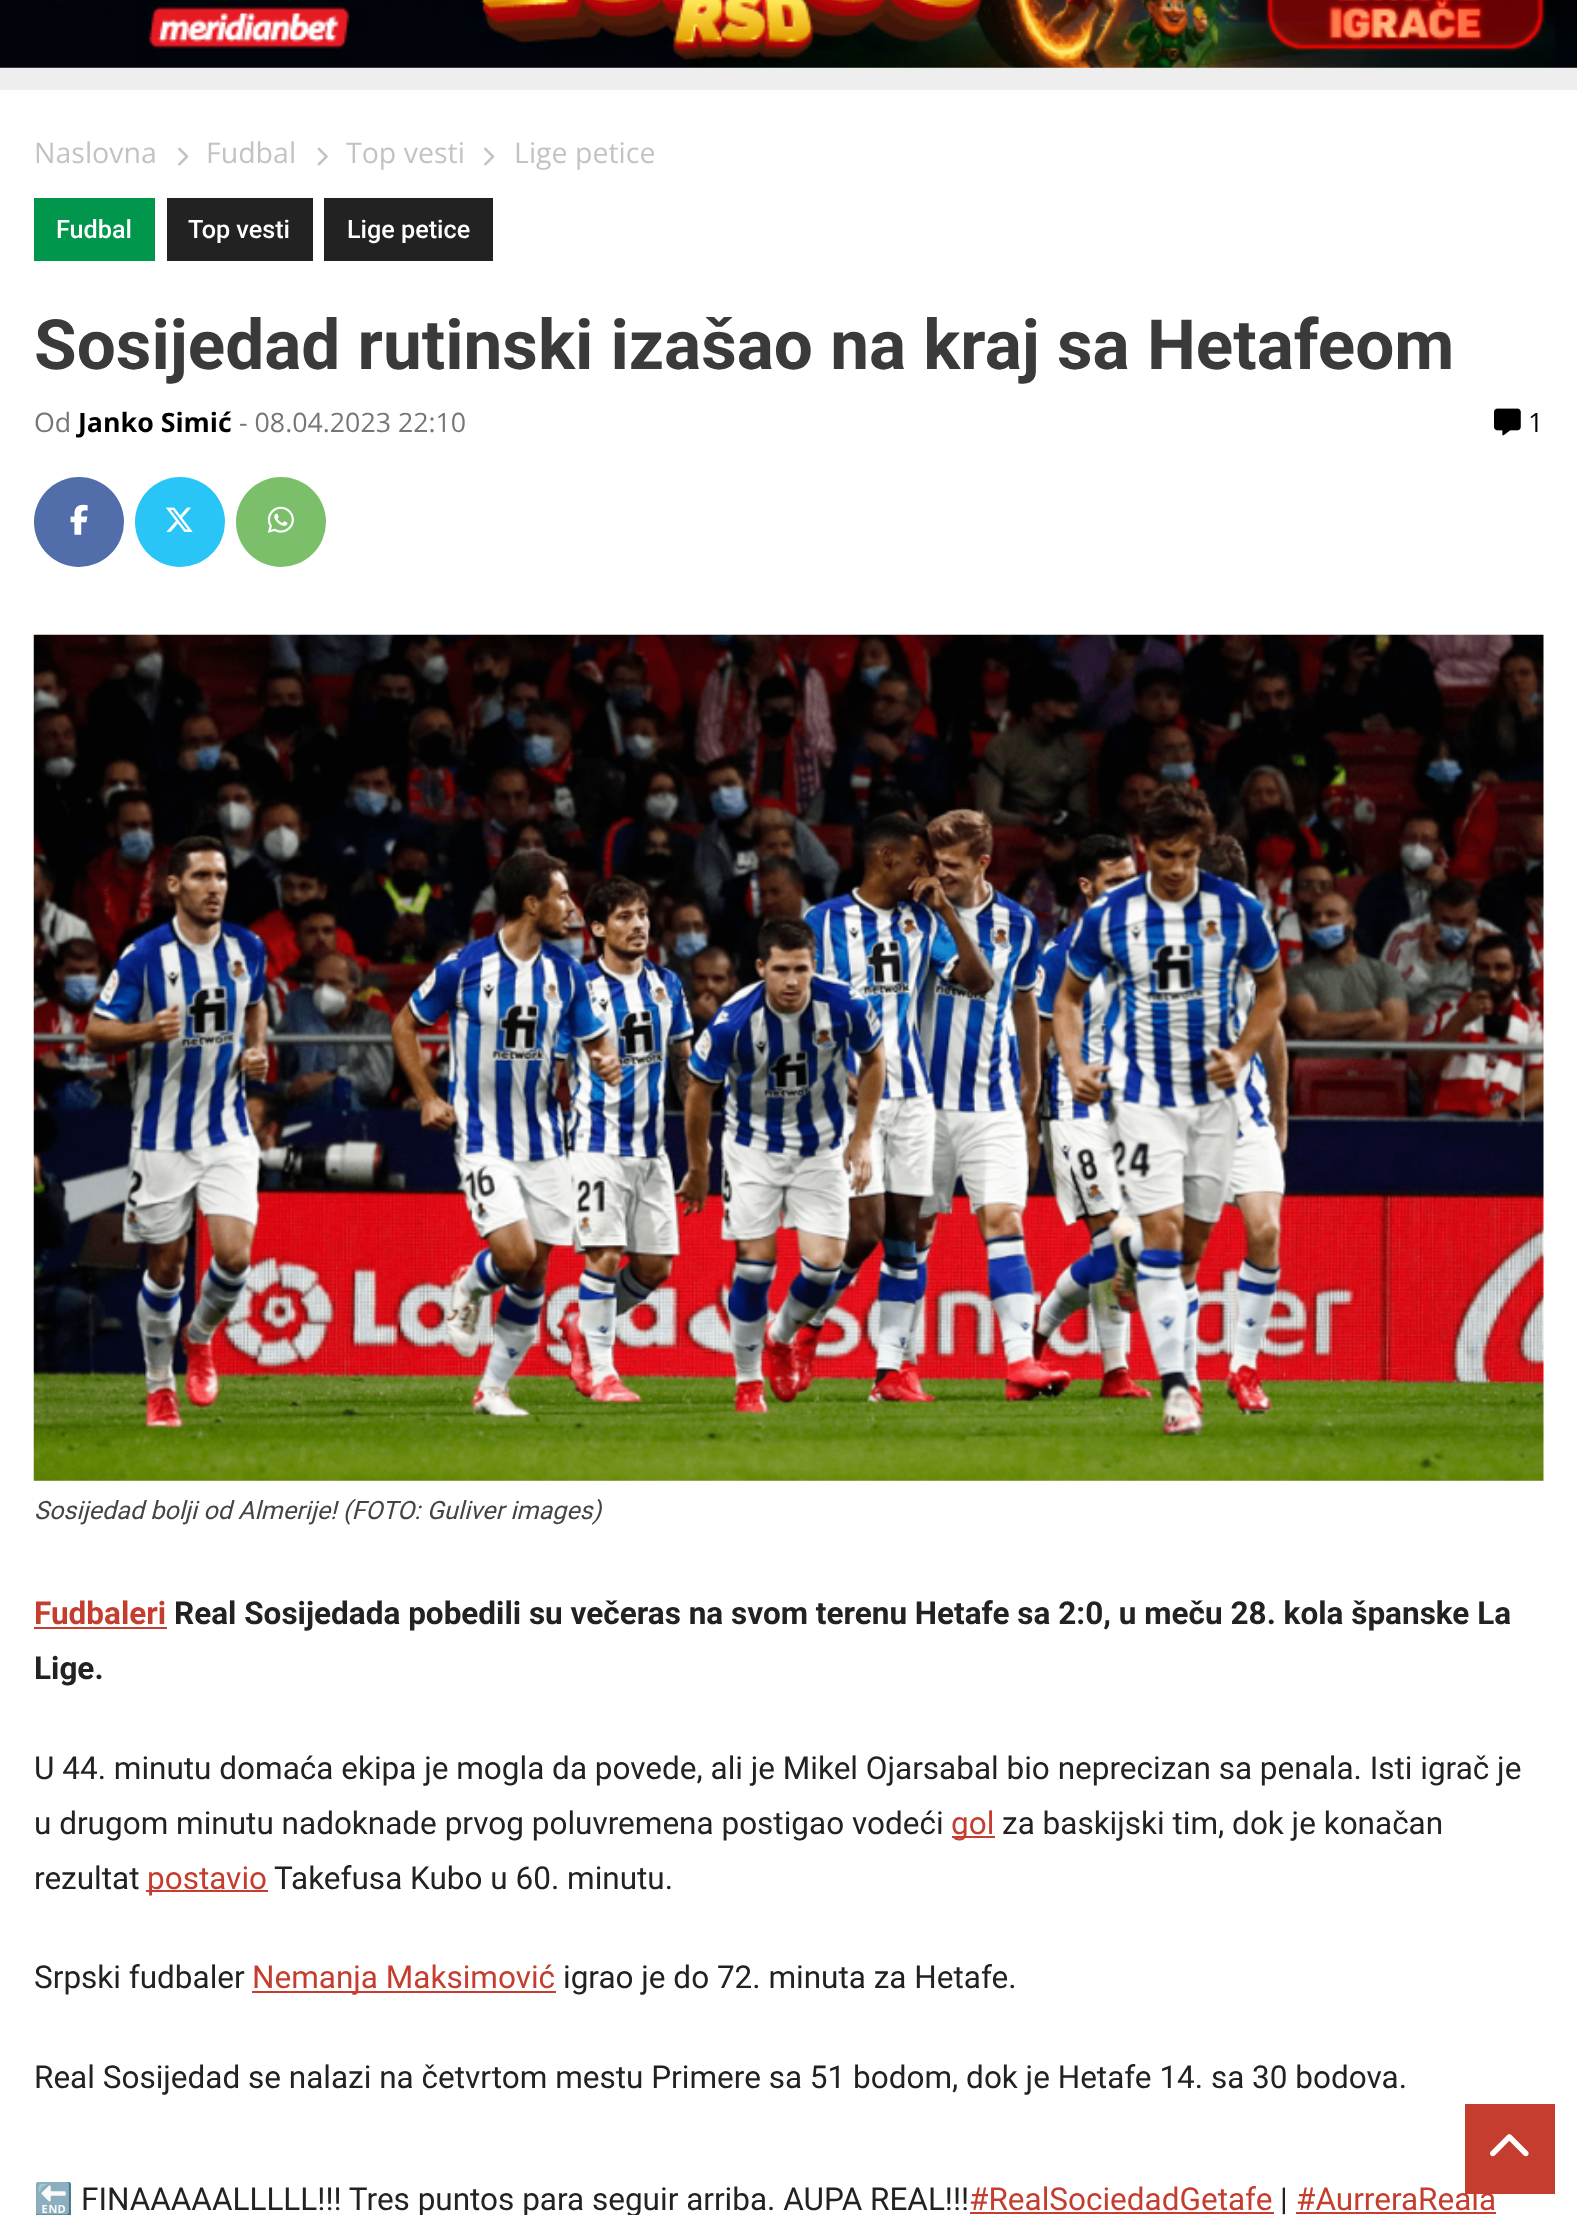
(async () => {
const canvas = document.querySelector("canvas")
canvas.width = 1577
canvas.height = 2215
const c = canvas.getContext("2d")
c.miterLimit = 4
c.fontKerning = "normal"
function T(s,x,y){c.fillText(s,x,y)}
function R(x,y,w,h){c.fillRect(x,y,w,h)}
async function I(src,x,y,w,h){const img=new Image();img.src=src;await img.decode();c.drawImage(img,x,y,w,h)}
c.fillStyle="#fff"
R(0,0,1577,2215)
c.fillStyle="#eee"
R(0,67,1577,23)
await I("1.png",0,0,1577,68)
c.font="28.5px Open Sans"
c.fillStyle="#c3c3c3"
T("Naslovna",34,163)
await I("2.png",178,147,11,19)
T("Fudbal",206,163)
await I("3.png",317,147,11,19)
T("Top vesti",346,163)
await I("2.png",484,147,11,19)
T("Lige petice",514,163)
c.fillStyle="#00964c"
R(34,198,121,63)
c.font="500 25.2px Roboto"
c.fillStyle="#fff"
T("Fudbal",56,238)
c.fillStyle="#222"
R(167,198,146,63)
c.fillStyle="#fff"
T("Top vesti",188,238)
c.fillStyle="#222"
R(324,198,169,63)
c.fillStyle="#fff"
T("Lige petice",347,238)
c.font="bold 69.3px Roboto"
c.fillStyle="#3a3a3a"
T("Sosijedad rutinski izašao na kraj sa Hetafeom",34,369)
c.font="26.75px Open Sans"
c.fillStyle="#767676"
T("Od",34,432)
c.font="bold 26.75px Open Sans"
c.fillStyle="#000"
T("Janko Simić",78,432)
c.font="26.75px Open Sans"
c.fillStyle="#767676"
T("- 08.04.2023 22:10",239,432)
await I("4.png",1494,408,27,28)
c.fillStyle="#000"
T("1",1528,432)
c.fillStyle="#516eab"
c.beginPath()
c.arc(79,522,45,0,7)
c.fill()
await I("5.png",70,504,18,31)
c.fillStyle="#29c5f6"
c.beginPath()
c.arc(180,522,45,0,7)
c.fill()
await I("6.png",165,507,28,25)
c.fillStyle="#7bbf6a"
c.beginPath()
c.arc(281,522,45,0,7)
c.fill()
await I("7.png",267,506,27,27)
await I("8.png",33,634,1511,847)
c.font="italic 25.2px Roboto"
c.fillStyle="#444"
T("Sosijedad bolji od Almerije! (FOTO: Guliver images)",34,1519)
c.font="bold 31.5px Roboto"
c.fillStyle="#c43d2f"
T("Fudbaleri",34,1624)
R(34,1627,133,2)
c.fillStyle="#222"
T("Real Sosijedada pobedili su večeras na svom terenu Hetafe sa 2:0, u meču 28. kola španske La",174,1624)
T("Lige.",34,1679)
c.font="31.5px Roboto"
T("U 44. minutu domaća ekipa je mogla da povede, ali je Mikel Ojarsabal bio neprecizan sa penala. Isti igrač je",34,1779)
T("u drugom minutu nadoknade prvog poluvremena postigao vodeći",34,1834)
c.fillStyle="#c43d2f"
R(952,1836,43,2)
T("gol",951,1834)
c.fillStyle="#222"
T("za baskijski tim, dok je konačan",1002,1834)
T("rezultat",34,1889)
c.fillStyle="#c43d2f"
R(146,1890,122,2)
T("postavio",147,1889)
c.fillStyle="#222"
T("Takefusa Kubo u 60. minutu.",274,1889)
T("Srpski fudbaler",34,1988)
c.fillStyle="#c43d2f"
R(252,1991,304,2)
T("Nemanja Maksimović",252,1988)
c.fillStyle="#222"
T("igrao je do 72. minuta za Hetafe.",563,1988)
T("Real Sosijedad se nalazi na četvrtom mestu Primere sa 51 bodom, dok je Hetafe 14. sa 30 bodova.",34,2088)
c.font="31.5px Noto Color Emoji"
T("🔚",34,2210)
c.font="31.5px Roboto"
T("FINAAAAALLLLL!!! Tres puntos para seguir arriba. AUPA REAL!!!",81,2210)
c.fillStyle="#c43d2f"
T("#RealSociedadGetafe",969,2210)
R(970,2212,304,2)
c.fillStyle="#222"
T("|",1280,2210)
c.fillStyle="#c43d2f"
T("#AurreraReala",1296,2210)
R(1296,2212,200,2)
R(1465,2104,90,90)
await I("9.png",1490,2134,39,23)
})()
